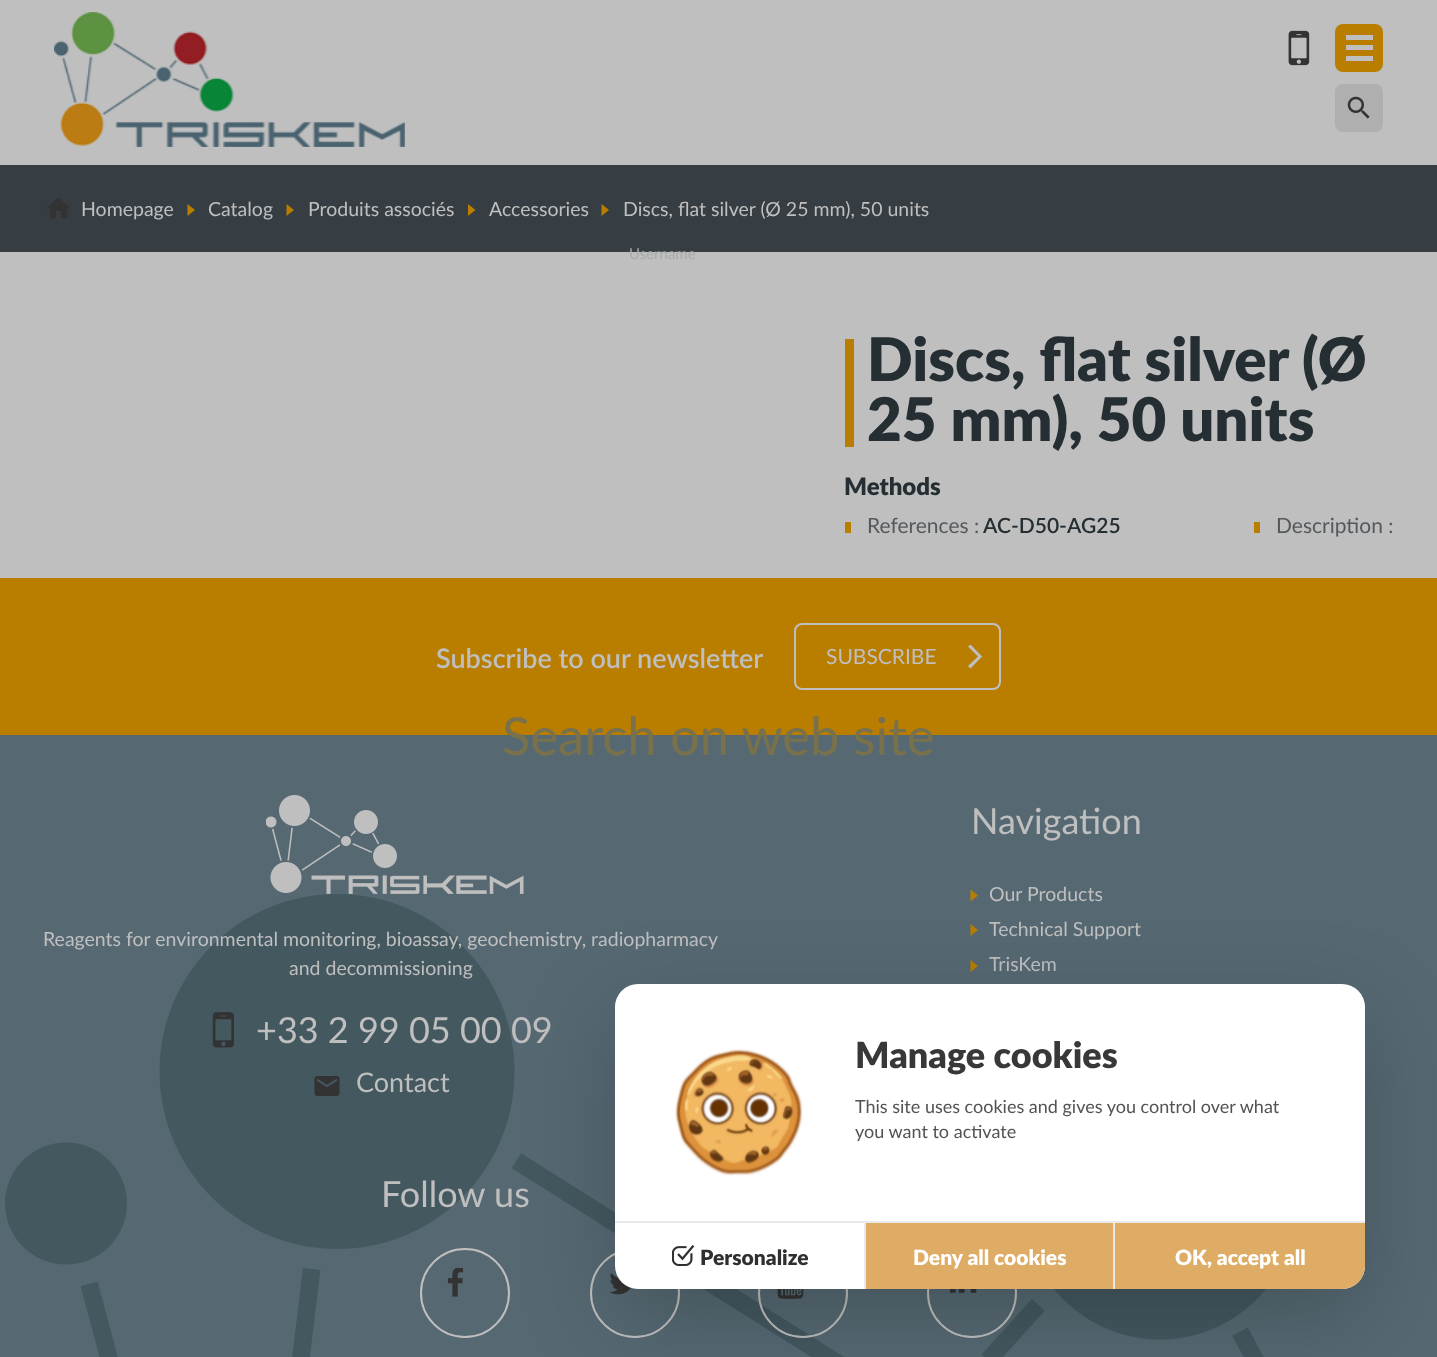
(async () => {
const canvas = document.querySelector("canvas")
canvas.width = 1437
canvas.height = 1357
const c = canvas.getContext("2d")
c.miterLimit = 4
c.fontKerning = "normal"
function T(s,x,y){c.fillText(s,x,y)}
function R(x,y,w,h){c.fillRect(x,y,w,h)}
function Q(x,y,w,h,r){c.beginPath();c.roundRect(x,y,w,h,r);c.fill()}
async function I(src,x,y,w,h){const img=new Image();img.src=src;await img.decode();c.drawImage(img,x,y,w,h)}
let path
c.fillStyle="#bfbfbf"
R(0,0,1437,1357)
c.fillStyle="#373e43"
R(0,165,1437,87)
await I("1.png",46,197,25,22)
c.font="19.5px Lato"
c.fillStyle="#bfbfbf"
T("Homepage",81,216)
c.fillStyle="#b97e00"
path = new Path2D("M187.5 216v-12l7.5 6z")
c.fill(path)
c.fillStyle="#bfbfbf"
T("Catalog",208,216)
c.fillStyle="#b97e00"
path = new Path2D("M286.5 216v-12l7.5 6z")
c.fill(path)
c.fillStyle="#bfbfbf"
T("Produits associés",308,216)
c.fillStyle="#b97e00"
path = new Path2D("M468 216v-12l7.5 6z")
c.fill(path)
c.fillStyle="#bfbfbf"
T("Accessories",489,216)
c.fillStyle="#b97e00"
path = new Path2D("M601.5 216v-12l7.5 6z")
c.fill(path)
c.fillStyle="#bfbfbf"
T("Discs, flat silver (Ø 25 mm), 50 units",623,216)
c.font="15px Lato"
c.fillStyle="#a9aaaa"
T("Username",629,259)
await I("2.png",54,12,351,135)
await I("3.png",1288,30,22,36)
c.fillStyle="#b97e00"
Q(1335,24,48,48,8)
c.fillStyle="#bfbfbf"
R(1346,35,27,5)
R(1346,45,27,5)
R(1346,56,27,5)
c.fillStyle="#afafaf"
Q(1335,84,48,48,8)
await I("4.png",1347,96,23,23)
c.fillStyle="#b97e00"
R(0,578,1437,157)
c.fillStyle="#566973"
R(0,735,1437,622)
c.font="52.5px Lato"
c.fillStyle="#78714b"
T("Search on web site",502,755)
c.fillStyle="#b97e00"
R(845,339,9,108)
c.font="900 60px Lato"
c.fillStyle="#252e33"
T("Discs, flat silver (Ø",867,381)
T("25 mm), 50 units",867,441)
c.font="900 24px Lato"
T("Methods",844,495)
c.fillStyle="#b97e00"
R(845,522,6,11)
c.font="21px Lato"
c.fillStyle="#54595d"
T("References :",867,533)
c.font="600 21px Lato"
c.fillStyle="#252e33"
T("AC-D50-AG25",983,533)
c.fillStyle="#b97e00"
R(1254,522,6,11)
c.font="21px Lato"
c.fillStyle="#54595d"
T("Description :",1276,533)
c.font="600 27px Lato"
c.fillStyle="#bfbfbf"
T("Subscribe to our newsletter",436,668)
c.beginPath()
c.roundRect(795,624,205,65,7)
c.strokeStyle="#bfbfbf"
c.lineWidth=2
c.stroke()
c.font="21px Lato"
T("SUBSCRIBE",826,664)
path = new Path2D("M968 646.5l2.5-2l11.5 12l-2 2z")
c.fill(path)
path = new Path2D("M968 666l12-11.5l2 2l-11.5 12z")
c.fill(path)
await I("5.png",5,894,1261,463)
c.font="36px Lato"
T("Navigation",971,834)
c.fillStyle="#b97e00"
path = new Path2D("M970.5 901.5v-12l7.5 6z")
c.fill(path)
c.font="19.5px Lato"
c.fillStyle="#bfbfbf"
T("Our Products",989,901)
c.fillStyle="#b97e00"
path = new Path2D("M970.5 936v-12l7.5 6z")
c.fill(path)
c.fillStyle="#bfbfbf"
T("Technical Support",989,936)
c.fillStyle="#b97e00"
path = new Path2D("M970.5 972v-12l7.5 6z")
c.fill(path)
c.fillStyle="#bfbfbf"
T("TrisKem",989,971)
await I("6.png",266,795,258,99)
T("Reagents for environmental monitoring, bioassay, geochemistry, radiopharmacy",43,946)
T("and decommissioning",289,975)
await I("7.png",212,1012,22,36)
c.font="36px Lato"
T("+33 2 99 05 00 09",256,1043)
await I("8.png",314,1076,26,20)
c.font="27px Lato"
T("Contact",356,1092)
c.font="36px Lato"
T("Follow us",381,1207)
c.beginPath()
c.arc(465,1293,44,0,7)
c.stroke()
await I("9.png",447,1268,16,29)
c.beginPath()
c.arc(635,1293,44,0,7)
c.stroke()
await I("10.png",609,1273,23,22)
c.beginPath()
c.arc(803,1293,44,0,7)
c.stroke()
await I("11.png",777,1289,27,10)
c.beginPath()
c.arc(972,1293,44,0,7)
c.stroke()
await I("12.png",950,1289,27,4)
c.fillStyle="#00000033"
c.filter="blur(45px)"
c.beginPath()
c.roundRect(615,1014,750,305,23)
c.fill()
c.filter="none"
c.fillStyle="#fff"
Q(615,984,750,305,23)
c.font="900 36px Lato"
c.fillStyle="#383838"
T("Manage cookies",855,1068)
await I("13.png",675,1049,128,127)
c.font="18px Lato"
c.fillStyle="#535353"
T("This site uses cookies and gives you control over what",855,1113)
T("you want to activate",855,1138)
c.fillStyle="#deac64"
c.beginPath()
c.roundRect(1115,1221,250,68,[0,0,23,0])
c.fill()
c.fillStyle="#eaeaea"
R(615,1221,750,2)
R(864,1221,2,68)
await I("14.png",672,1245,23,21)
c.font="900 21px Lato"
c.fillStyle="#2f2f2f"
T("Personalize",700,1265)
c.fillStyle="#deac64"
R(866,1223,247,66)
c.fillStyle="#eaeaea"
R(1113,1221,2,68)
c.fillStyle="#fff"
T("Deny all cookies",913,1265)
T("OK, accept all",1175,1265)
})()
